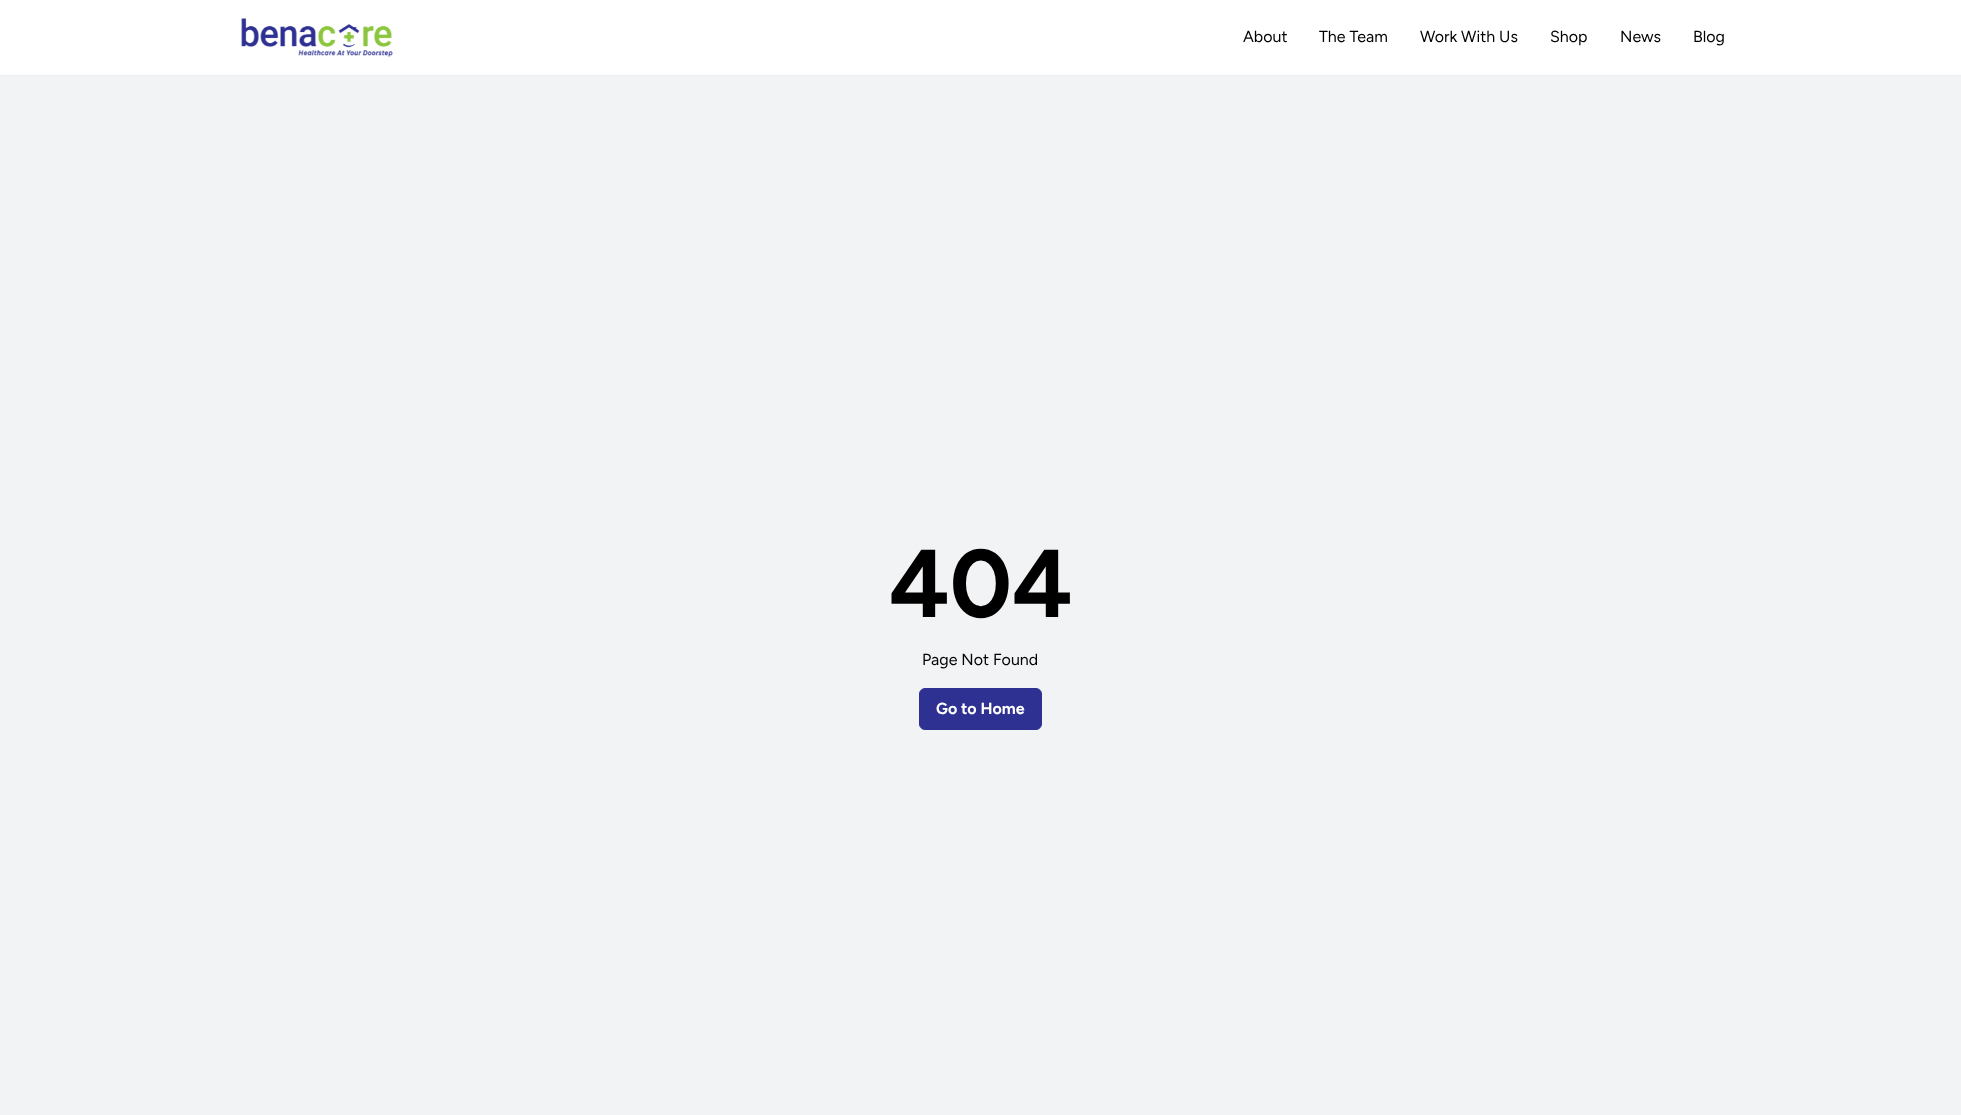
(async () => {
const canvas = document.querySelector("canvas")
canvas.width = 1961
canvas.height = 1115
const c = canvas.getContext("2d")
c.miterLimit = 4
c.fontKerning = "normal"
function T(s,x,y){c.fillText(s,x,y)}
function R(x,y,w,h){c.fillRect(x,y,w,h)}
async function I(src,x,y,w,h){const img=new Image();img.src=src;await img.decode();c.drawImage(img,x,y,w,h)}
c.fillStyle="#f2f3f5"
R(0,0,1961,1115)
c.fillStyle="#fff"
R(0,0,1961,75)
c.fillStyle="#eee"
R(0,75,1961,1)
await I("1.png",241,18,152,39)
c.font="16px Figtree"
c.fillStyle="#000"
T("About",1243,42)
T("The Team",1319,42)
T("Work With Us",1420,42)
T("Shop",1550,42)
T("News",1620,42)
T("Blog",1693,42)
c.font="bold 96px Figtree"
T("404",889,617)
c.font="16px Figtree"
T("Page Not Found",922,665)
c.fillStyle="#2e3192"
c.beginPath()
c.roundRect(919.5,688.5,122,41,5.5)
c.fill()
c.strokeStyle="#2e3192"
c.stroke()
c.font="bold 16px Figtree"
c.fillStyle="#fff"
T("Go to Home",936,714)
})()
